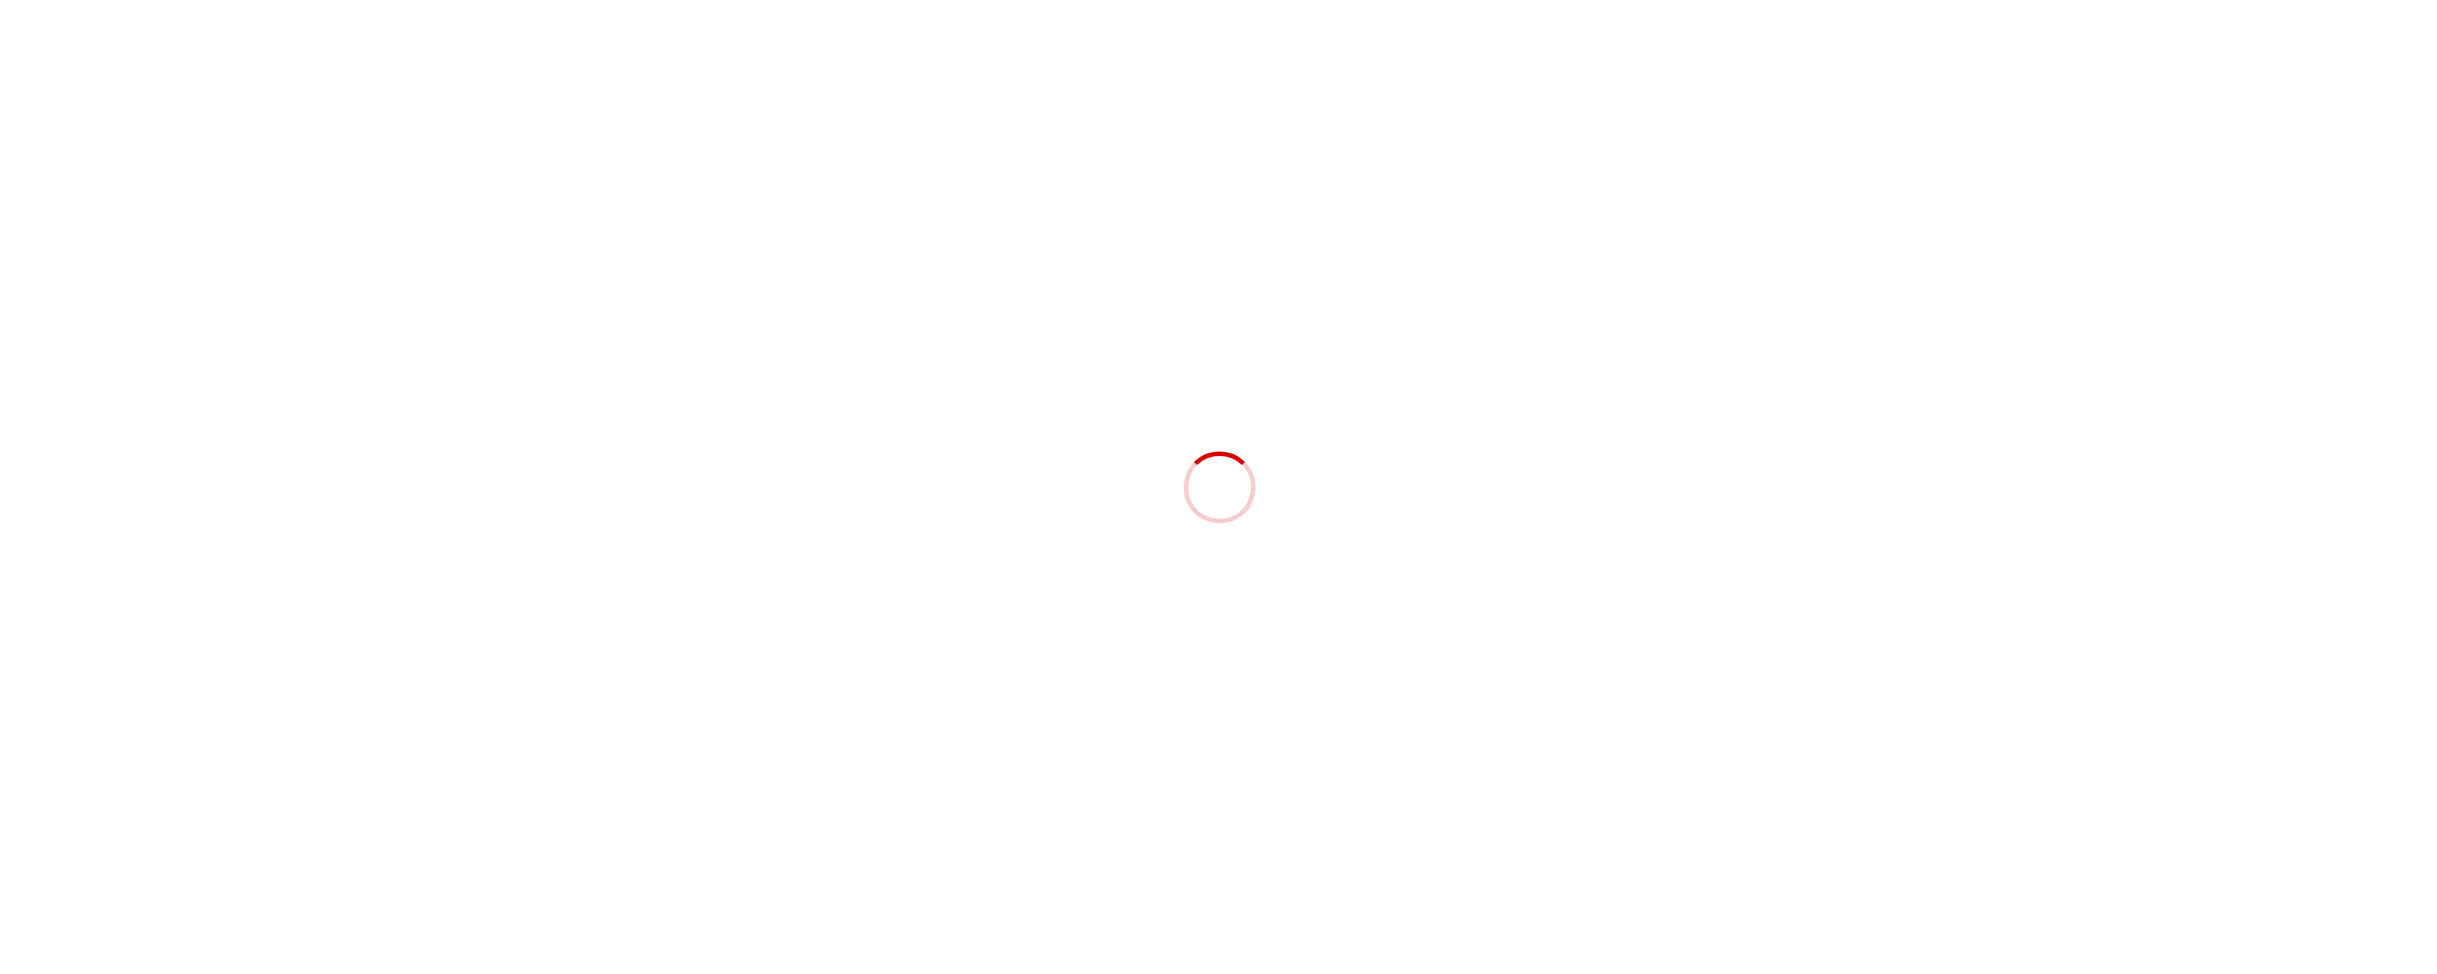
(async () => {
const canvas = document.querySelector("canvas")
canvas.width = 2437
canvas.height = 974
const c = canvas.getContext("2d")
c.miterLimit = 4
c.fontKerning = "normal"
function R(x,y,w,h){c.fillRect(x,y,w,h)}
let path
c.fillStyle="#fff"
R(0,0,2437,974)
path = new Path2D("M1195.5 463.5c13-13 35-13 48 0")
c.strokeStyle="#d90000"
c.lineWidth=4.5
c.stroke(path)
path = new Path2D("M1243.5 463.5c8 8 11.5 19.5 9 30.5c-8 39.5-66.5 34-66.5-6.5c0-9 3.5-17.5 9.5-24")
c.strokeStyle="#d9000033"
c.stroke(path)
})()
